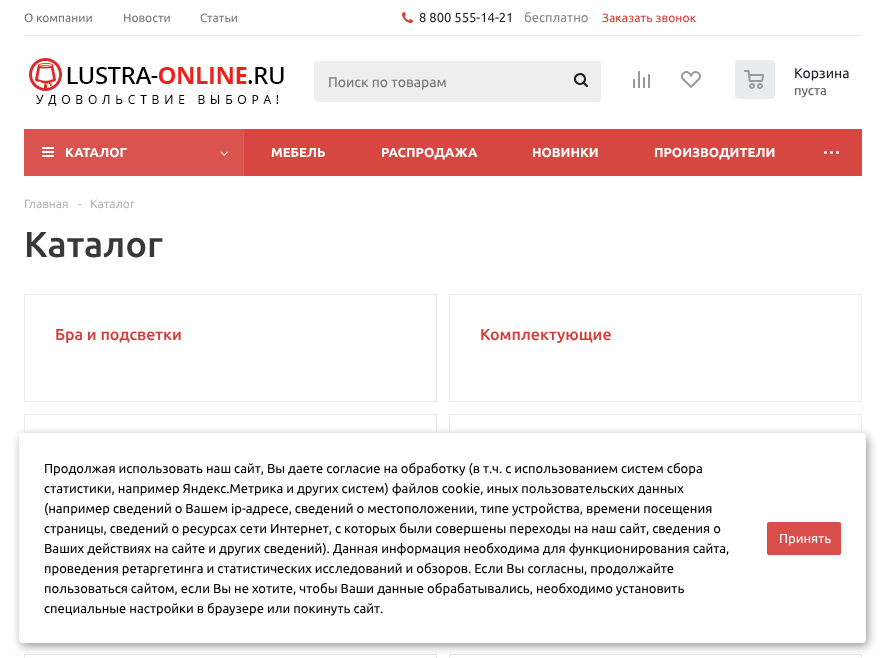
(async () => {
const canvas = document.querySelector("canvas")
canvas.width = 886
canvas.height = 658
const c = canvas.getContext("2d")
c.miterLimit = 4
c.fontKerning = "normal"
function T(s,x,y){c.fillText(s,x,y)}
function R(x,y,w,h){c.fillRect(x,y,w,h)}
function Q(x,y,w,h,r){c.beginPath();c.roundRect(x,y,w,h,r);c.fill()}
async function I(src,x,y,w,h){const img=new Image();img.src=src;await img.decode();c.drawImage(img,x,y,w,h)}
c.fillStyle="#fff"
R(0,0,886,658)
c.font="12px Ubuntu"
c.fillStyle="#777"
T("О компании",24,22)
T("Новости",123,22)
T("Статьи",200,22)
await I("1.png",402,12,11,11)
c.font="13px Ubuntu"
c.fillStyle="#1d2029"
T("8 800 555-14-21",419,22)
c.fillStyle="#888"
T("бесплатно",524,22)
c.letterSpacing="0.1px"
c.font="12px Ubuntu"
c.fillStyle="#d63d39"
T("Заказать звонок",602,22)
c.fillStyle="#eaebec"
R(24,35,838,1)
await I("2.png",29,58,255,48)
c.fillStyle="#eee"
Q(314,61,287,41,4)
c.letterSpacing="0px"
c.font="14px Ubuntu"
c.fillStyle="#777"
T("Поиск по товарам",328,87)
await I("3.png",574,73,14,14)
await I("4.png",633,71,17,17)
await I("5.png",681,71,20,17)
c.fillStyle="#eaebec"
Q(735,60,40,39,4)
await I("6.png",744,70,20,19)
c.fillStyle="#1d2029"
T("Корзина",794,78)
c.font="13px Ubuntu"
c.fillStyle="#5f5f5f"
T("пуста",794,95)
c.fillStyle="#d64742"
R(244,129,618,47)
c.fillStyle="#d9534f"
R(24,129,219,47)
await I("7.png",42,147,12,10)
c.font="bold 13px Ubuntu"
c.fillStyle="#fff"
T("КАТАЛОГ",65,157)
c.fillStyle="#dd6461"
R(243,129,1,47)
await I("8.png",220,151,8,5)
c.fillStyle="#fff"
T("МЕБЕЛЬ",271,157)
T("РАСПРОДАЖА",381,157)
T("НОВИНКИ",532,157)
T("ПРОИЗВОДИТЕЛИ",654,157)
await I("9.png",824,151,15,3)
c.font="12px Ubuntu"
c.fillStyle="#b6b5b5"
T("Главная",24,208)
T("-",78,208)
T("Каталог",90,208)
c.font="500 36px Ubuntu"
c.fillStyle="#383838"
T("Каталог",24,257)
c.strokeStyle="#eaebec"
c.strokeRect(24.5,294.5,412,107)
c.font="500 16px Ubuntu"
c.fillStyle="#d63d39"
T("Бра и подсветки",55,340)
c.strokeRect(449.5,294.5,412,107)
T("Комплектующие",480,340)
c.strokeRect(24.5,414.5,412,107)
c.strokeRect(449.5,414.5,412,107)
c.strokeRect(24.5,654.5,412,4)
c.strokeRect(449.5,654.5,412,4)
c.fillStyle="#00000066"
c.filter="blur(5px)"
c.beginPath()
c.roundRect(21,436,847,210,4)
c.fill()
c.filter="none"
c.fillStyle="#fff"
Q(19,433,847,210,4)
c.font="13px Ubuntu"
c.fillStyle="#000"
T("Продолжая использовать наш cайт, Вы даете согласие на обработку (в т.ч. с использованием систем сбора",44,473)
T("статистики, например Яндекс.Метрика и других систем) файлов cookie, иных пользовательских данных",44,493)
T("(например сведений о Вашем ip-адресе, сведений о местоположении, типе устройства, времени посещения",44,513)
T("страницы, сведений о ресурсах сети Интернет, с которых были совершены переходы на наш сайт, сведения о",44,533)
T("Ваших действиях на сайте и других сведений). Данная информация необходима для функционирования сайта,",44,553)
T("проведения ретаргетинга и статистических исследований и обзоров. Если Вы согласны, продолжайте",44,573)
T("пользоваться сайтом, если Вы не хотите, чтобы Ваши данные обрабатывались, необходимо установить",44,593)
T("специальные настройки в браузере или покинуть сайт.",44,613)
c.fillStyle="#d94e4a"
Q(767,522,74,33,2)
c.fillStyle="#fff"
T("Принять",779,543)
})()
